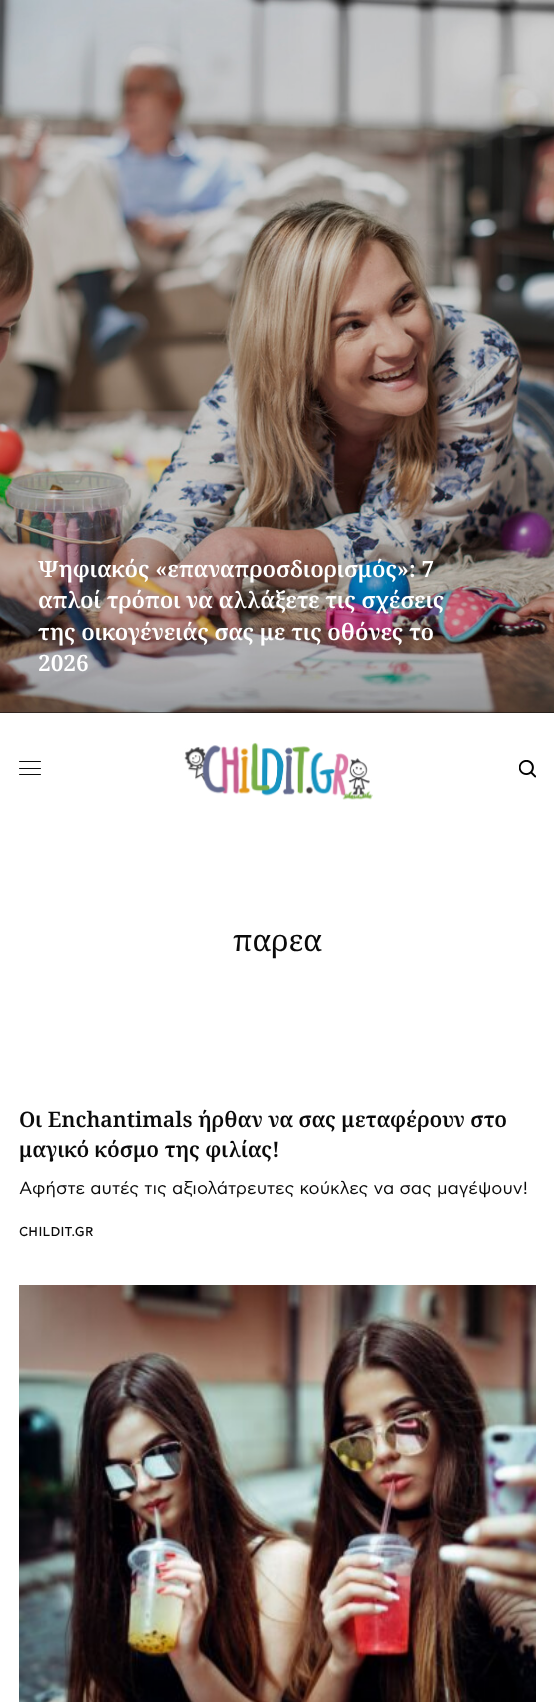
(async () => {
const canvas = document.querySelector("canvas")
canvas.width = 554
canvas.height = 1702
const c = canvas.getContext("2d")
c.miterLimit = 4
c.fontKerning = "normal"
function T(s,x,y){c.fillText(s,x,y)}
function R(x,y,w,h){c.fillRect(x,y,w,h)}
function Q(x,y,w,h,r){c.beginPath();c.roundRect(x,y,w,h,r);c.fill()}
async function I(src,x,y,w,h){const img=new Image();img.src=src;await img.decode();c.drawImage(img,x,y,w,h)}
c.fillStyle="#fff"
R(0,0,554,1702)
c.fillStyle="#0a0a0a"
R(0,0,554,713)
await I("1.png",0,0,554,713)
c.font="600 22.5px Noto Serif"
c.fillStyle="#fff"
T("Ψηφιακός «επαναπροσδιορισμός»: 7",38,577)
T("απλοί τρόποι να αλλάξετε τις σχέσεις",38,608)
T("της οικογένειάς σας με τις οθόνες το",38,640)
T("2026",38,671)
c.fillStyle="#0a0a0a"
Q(19,761,22,1,.5)
Q(19,768,22,1,.5)
Q(19,774,22,1,.5)
await I("2.png",184,742,189,58)
await I("3.png",519,760,17,18)
c.font="30px Noto Serif"
T("παρεα",233,951)
c.font="600 21.25px Noto Serif"
T("Οι Enchantimals ήρθαν να σας μεταφέρουν στο",19,1127)
T("μαγικό κόσμο της φιλίας!",19,1157)
c.font="17.5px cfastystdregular"
T("Αφήστε αυτές τις αξιολάτρευτες κούκλες να σας μαγέψουν!",19,1194)
c.letterSpacing="0.6px"
c.font="bold 12.5px cfastystdregular"
T("CHILDIT.GR",19,1236)
await I("4.png",19,1285,517,417)
})()
